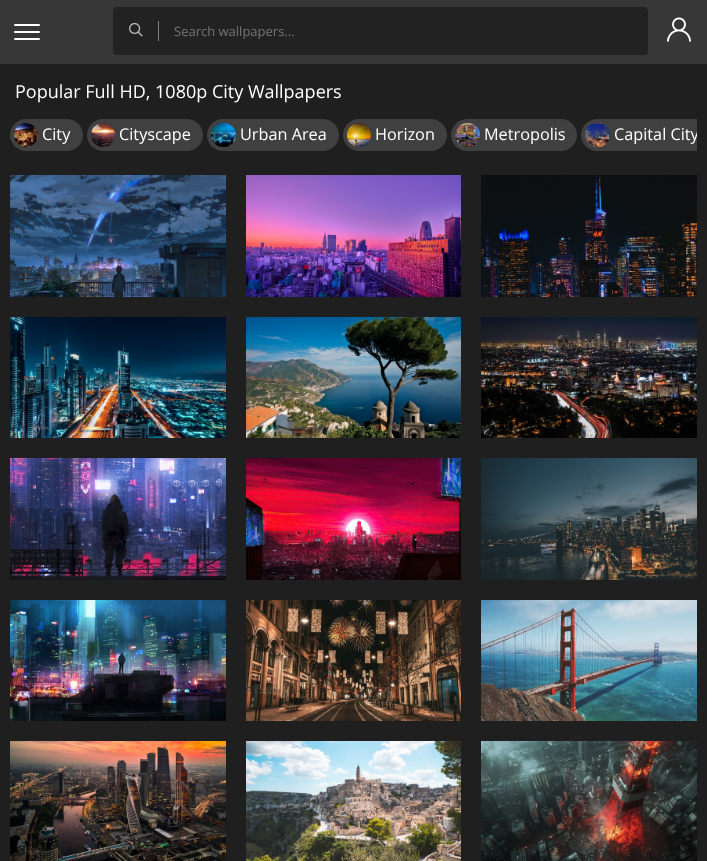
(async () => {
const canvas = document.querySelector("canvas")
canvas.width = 707
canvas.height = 861
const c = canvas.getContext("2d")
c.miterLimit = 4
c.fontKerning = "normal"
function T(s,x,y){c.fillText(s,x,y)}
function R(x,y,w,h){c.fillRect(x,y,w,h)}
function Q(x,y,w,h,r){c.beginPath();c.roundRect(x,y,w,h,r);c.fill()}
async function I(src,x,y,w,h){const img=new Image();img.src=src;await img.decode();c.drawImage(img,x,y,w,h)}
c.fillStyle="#1f1f1f"
R(0,0,707,861)
c.fillStyle="#373737"
R(0,0,707,64)
c.fillStyle="#fff"
Q(14,24,26,2,1)
Q(14,31,26,2,1)
Q(14,38,26,2,1)
c.fillStyle="#222"
Q(113,7,535,48,4)
await I("1.png",129,22,14,15)
c.fillStyle="#7e7e7e"
R(158,21,1,20)
c.font="13px Open Sans"
c.fillStyle="#757575"
T("Search wallpapers...",174,36)
await I("2.png",667,17,24,25)
c.font="18px Open Sans"
c.fillStyle="#fff"
T("Popular Full HD, 1080p City Wallpapers",15,98)
c.fillStyle="#404040"
Q(10,119,73,32,16)
await I("3.png",14,123,24,24)
c.font="16.25px Open Sans"
c.fillStyle="#fff"
T("City",42,140)
c.fillStyle="#404040"
Q(87,119,116,32,16)
await I("4.png",91,123,24,24)
c.fillStyle="#fff"
T("Cityscape",119,140)
c.fillStyle="#404040"
Q(207,119,132,32,16)
await I("5.png",211,123,25,24)
c.fillStyle="#fff"
T("Urban Area",240,140)
c.fillStyle="#404040"
Q(343,119,104,32,16)
await I("6.png",347,123,24,24)
c.fillStyle="#fff"
T("Horizon",375,140)
c.fillStyle="#404040"
Q(451,119,126,32,16)
await I("7.png",455,123,25,24)
c.fillStyle="#fff"
T("Metropolis",484,140)
c.save()
c.beginPath()
c.rect(10,119,687,36)
c.clip()
c.fillStyle="#404040"
Q(581,119,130,32,16)
c.restore()
await I("8.png",585,123,25,24)
c.save()
c.beginPath()
c.rect(10,119,687,36)
c.clip()
T("Capital City",614,140)
c.restore()
await I("9.png",10,175,216,122)
await I("10.png",10,317,216,121)
await I("11.png",10,458,216,122)
await I("12.png",10,600,216,121)
await I("13.png",10,741,216,120)
await I("14.png",246,175,215,122)
await I("15.png",246,317,215,121)
await I("16.png",246,458,215,122)
await I("17.png",246,600,215,121)
await I("18.png",246,741,215,120)
await I("19.png",481,175,216,122)
await I("20.png",481,317,216,121)
await I("21.png",481,458,216,122)
await I("22.png",481,600,216,121)
await I("23.png",481,741,216,120)
})()
